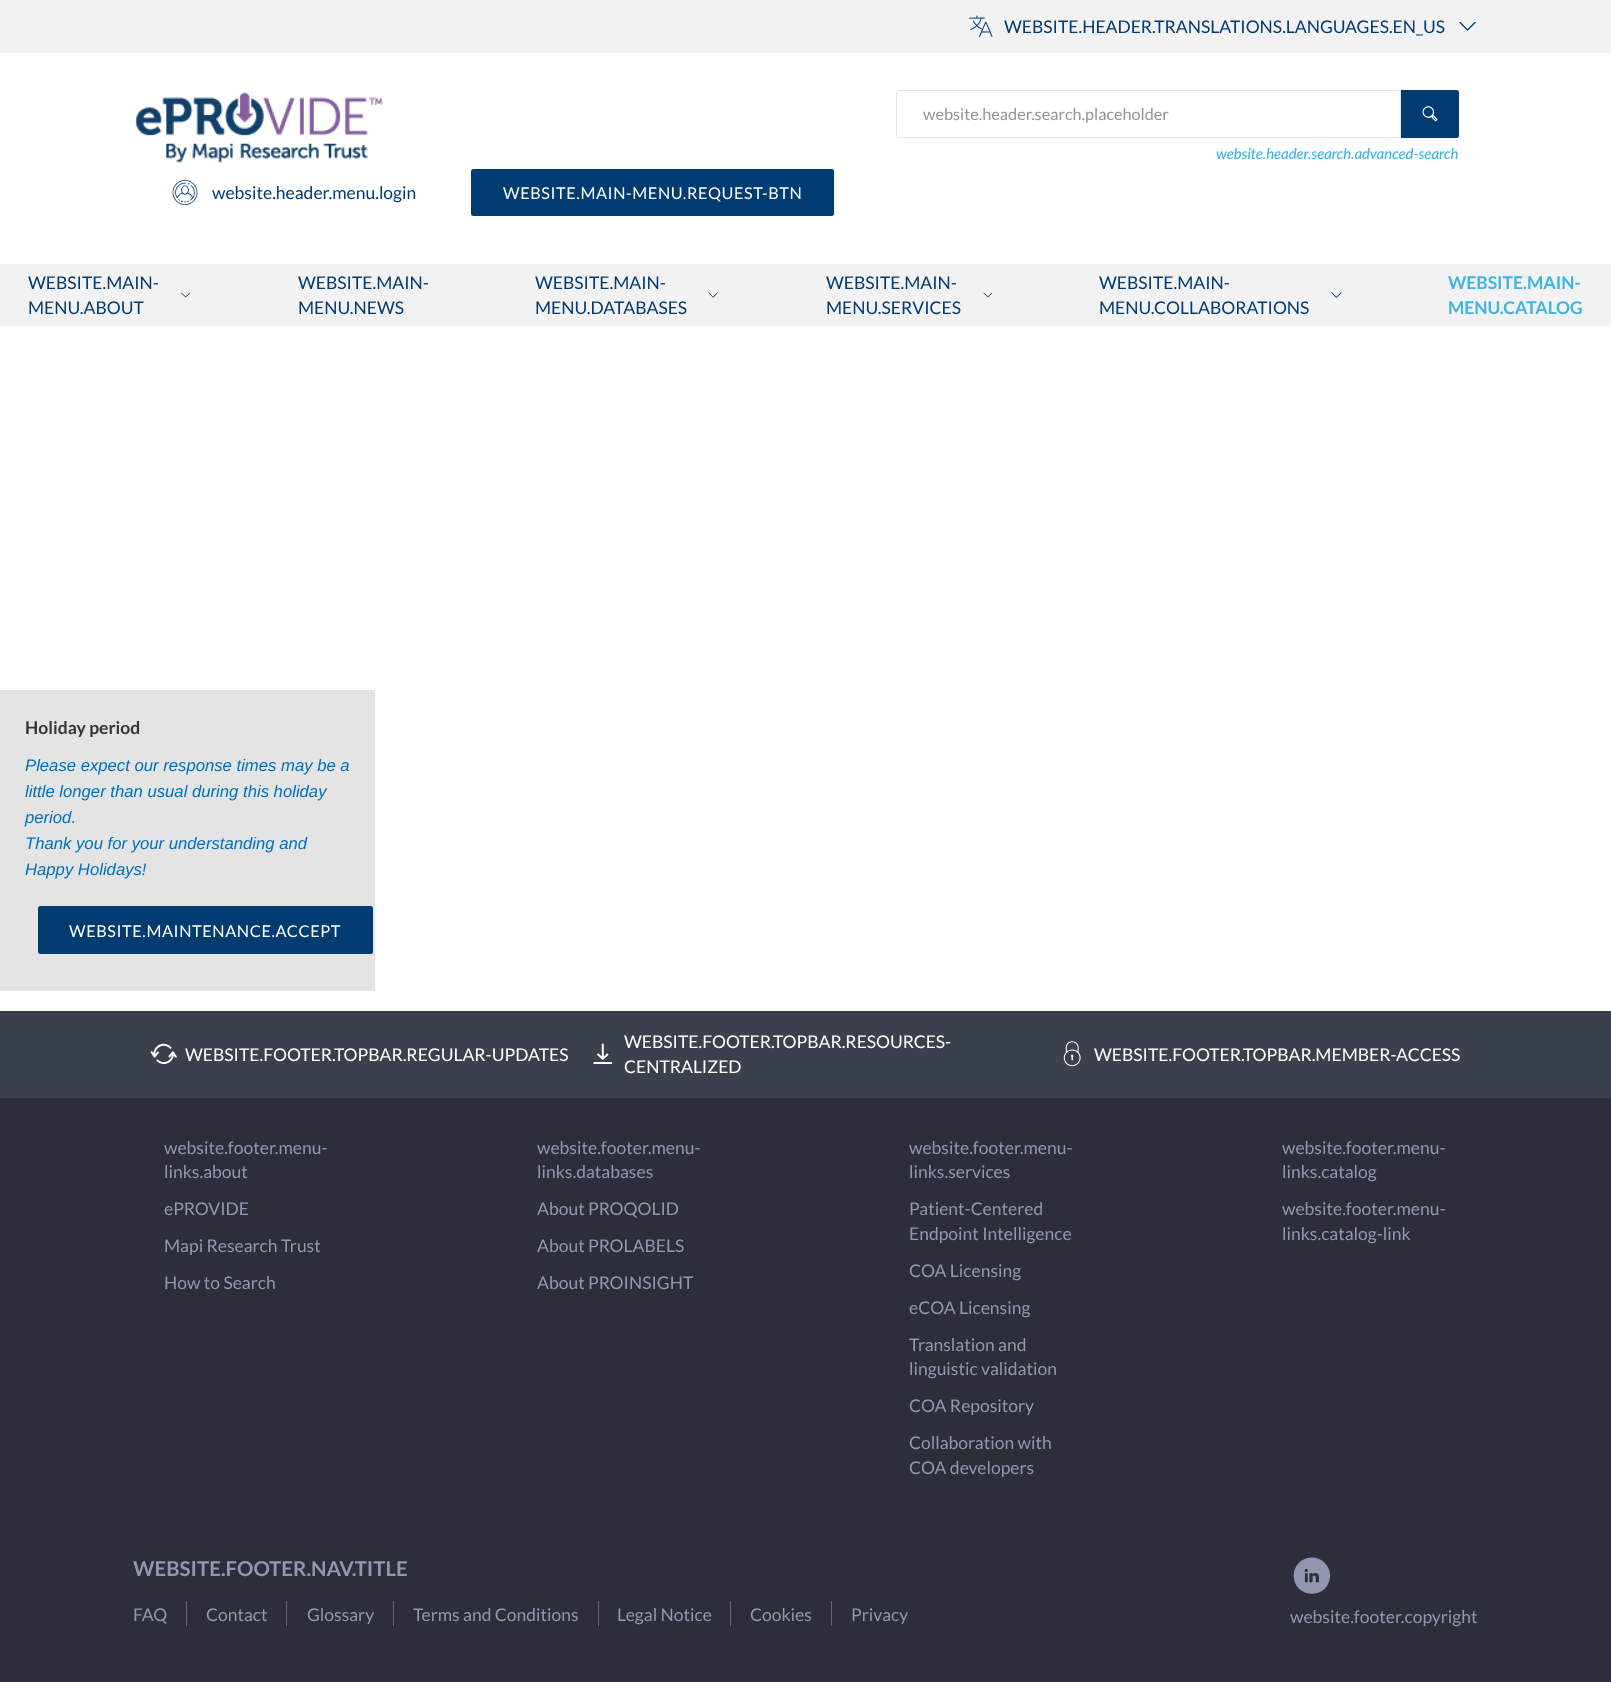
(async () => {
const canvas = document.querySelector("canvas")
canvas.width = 1611
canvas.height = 1682
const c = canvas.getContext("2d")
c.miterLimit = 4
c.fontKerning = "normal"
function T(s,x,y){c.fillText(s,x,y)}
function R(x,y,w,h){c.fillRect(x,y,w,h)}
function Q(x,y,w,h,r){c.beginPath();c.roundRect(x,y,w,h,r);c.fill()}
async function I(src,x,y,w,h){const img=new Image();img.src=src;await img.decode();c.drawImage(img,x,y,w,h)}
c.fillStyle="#fff"
R(0,0,1611,1682)
c.fillStyle="#f2f2f2"
R(0,0,1611,53)
await I("1.png",969,15,24,22)
c.font="17.5px Lato"
c.fillStyle="#003b71"
T("WEBSITE.HEADER.TRANSLATIONS.LANGUAGES.EN_US",1004,33)
await I("2.png",1459,22,17,9)
await I("3.png",135,92,248,71)
c.beginPath()
c.roundRect(896.5,90.5,504,47,[3.5,0,0,3.5])
c.strokeStyle="#e4e4e4"
c.stroke()
c.font="16.25px Lato"
c.fillStyle="#949494"
T("website.header.search.placeholder",923,120)
c.fillStyle="#003b71"
c.beginPath()
c.roundRect(1401,90,58,48,[0,2.5,2.5,0])
c.fill()
await I("4.png",1422,106,16,16)
c.letterSpacing="-0.15px"
c.font="italic 500 15px Lato"
c.fillStyle="#40b4e5"
T("website.header.search.advanced-search",1216,159)
await I("5.png",172,180,26,25)
c.letterSpacing="0px"
c.font="17.5px Lato"
c.fillStyle="#003b71"
T("website.header.menu.login",212,199)
Q(471,169,363,47,2.5)
c.letterSpacing="0.6px"
c.font="16.25px Lato"
c.fillStyle="#fff"
T("WEBSITE.MAIN-MENU.REQUEST-BTN",503,199)
c.fillStyle="#f2f2f2"
R(0,264,1611,62)
c.letterSpacing="0px"
c.font="17.5px Lato"
c.fillStyle="#003b71"
T("WEBSITE.MAIN-",28,289)
await I("6.png",181,292,10,6)
T("MENU.ABOUT",28,314)
T("WEBSITE.MAIN-",298,289)
T("MENU.NEWS",298,314)
T("WEBSITE.MAIN-",535,289)
await I("7.png",708,292,10,6)
T("MENU.DATABASES",535,314)
T("WEBSITE.MAIN-",826,289)
await I("8.png",983,292,10,6)
T("MENU.SERVICES",826,314)
T("WEBSITE.MAIN-",1099,289)
await I("9.png",1331,292,11,6)
T("MENU.COLLABORATIONS",1099,314)
c.font="bold 17.5px Lato"
c.fillStyle="#40b4e5"
T("WEBSITE.MAIN-",1448,289)
T("MENU.CATALOG",1448,314)
c.fillStyle="#e4e4e4"
R(0,690,375,301)
c.fillStyle="#353535"
T("Holiday period",25,734)
c.font="italic 16.7px Liberation Sans"
c.fillStyle="#0070c0"
T("Please expect our response times may be a",25,771)
T("little longer than usual during this holiday",25,797)
T("period.",25,823)
T("Thank you for your understanding and",25,849)
T("Happy Holidays!",25,875)
c.fillStyle="#003b71"
Q(38,906,335,48,2.5)
c.letterSpacing="0.6px"
c.font="16.25px Lato"
c.fillStyle="#fff"
T("WEBSITE.MAINTENANCE.ACCEPT",69,937)
c.fillStyle="#3b414c"
R(0,1011,1611,87)
await I("10.png",150,1043,27,21)
c.letterSpacing="0px"
c.font="17.5px Lato"
c.fillStyle="#fff"
T("WEBSITE.FOOTER.TOPBAR.REGULAR-UPDATES",185,1061)
await I("11.png",593,1043,20,21)
T("WEBSITE.FOOTER.TOPBAR.RESOURCES-",624,1048)
T("CENTRALIZED",624,1073)
await I("12.png",1063,1041,18,26)
T("WEBSITE.FOOTER.TOPBAR.MEMBER-ACCESS",1094,1061)
c.fillStyle="#2c2f39"
R(0,1098,1611,584)
c.fillStyle="#9097af"
T("website.footer.menu-",164,1154)
T("links.about",164,1178)
T("ePROVIDE",164,1215)
T("Mapi Research Trust",164,1252)
T("How to Search",164,1289)
T("website.footer.menu-",537,1154)
T("links.databases",537,1178)
T("About PROQOLID",537,1215)
T("About PROLABELS",537,1252)
T("About PROINSIGHT",537,1289)
T("website.footer.menu-",909,1154)
T("links.services",909,1178)
T("Patient-Centered",909,1215)
T("Endpoint Intelligence",909,1240)
T("COA Licensing",909,1277)
T("eCOA Licensing",909,1314)
T("Translation and",909,1351)
T("linguistic validation",909,1375)
T("COA Repository",909,1412)
T("Collaboration with",909,1449)
T("COA developers",909,1474)
T("website.footer.menu-",1282,1154)
T("links.catalog",1282,1178)
T("website.footer.menu-",1282,1215)
T("links.catalog-link",1282,1240)
c.font="bold 20.5px Lato"
T("WEBSITE.FOOTER.NAV.TITLE",133,1576)
c.font="17.5px Lato"
T("FAQ",133,1621)
c.fillStyle="#686868"
R(186,1601,1,25)
c.fillStyle="#9097af"
T("Contact",206,1621)
c.fillStyle="#686868"
R(286,1601,1,25)
c.fillStyle="#9097af"
T("Glossary",307,1621)
c.fillStyle="#686868"
R(393,1601,1,25)
c.fillStyle="#9097af"
T("Terms and Conditions",413,1621)
c.fillStyle="#686868"
R(598,1601,1,25)
c.fillStyle="#9097af"
T("Legal Notice",617,1621)
c.fillStyle="#686868"
R(730,1601,1,25)
c.fillStyle="#9097af"
T("Cookies",750,1621)
c.fillStyle="#686868"
R(831,1601,1,25)
c.fillStyle="#9097af"
T("Privacy",851,1621)
await I("13.png",1293,1557,38,37)
T("website.footer.copyright",1290,1623)
})()
